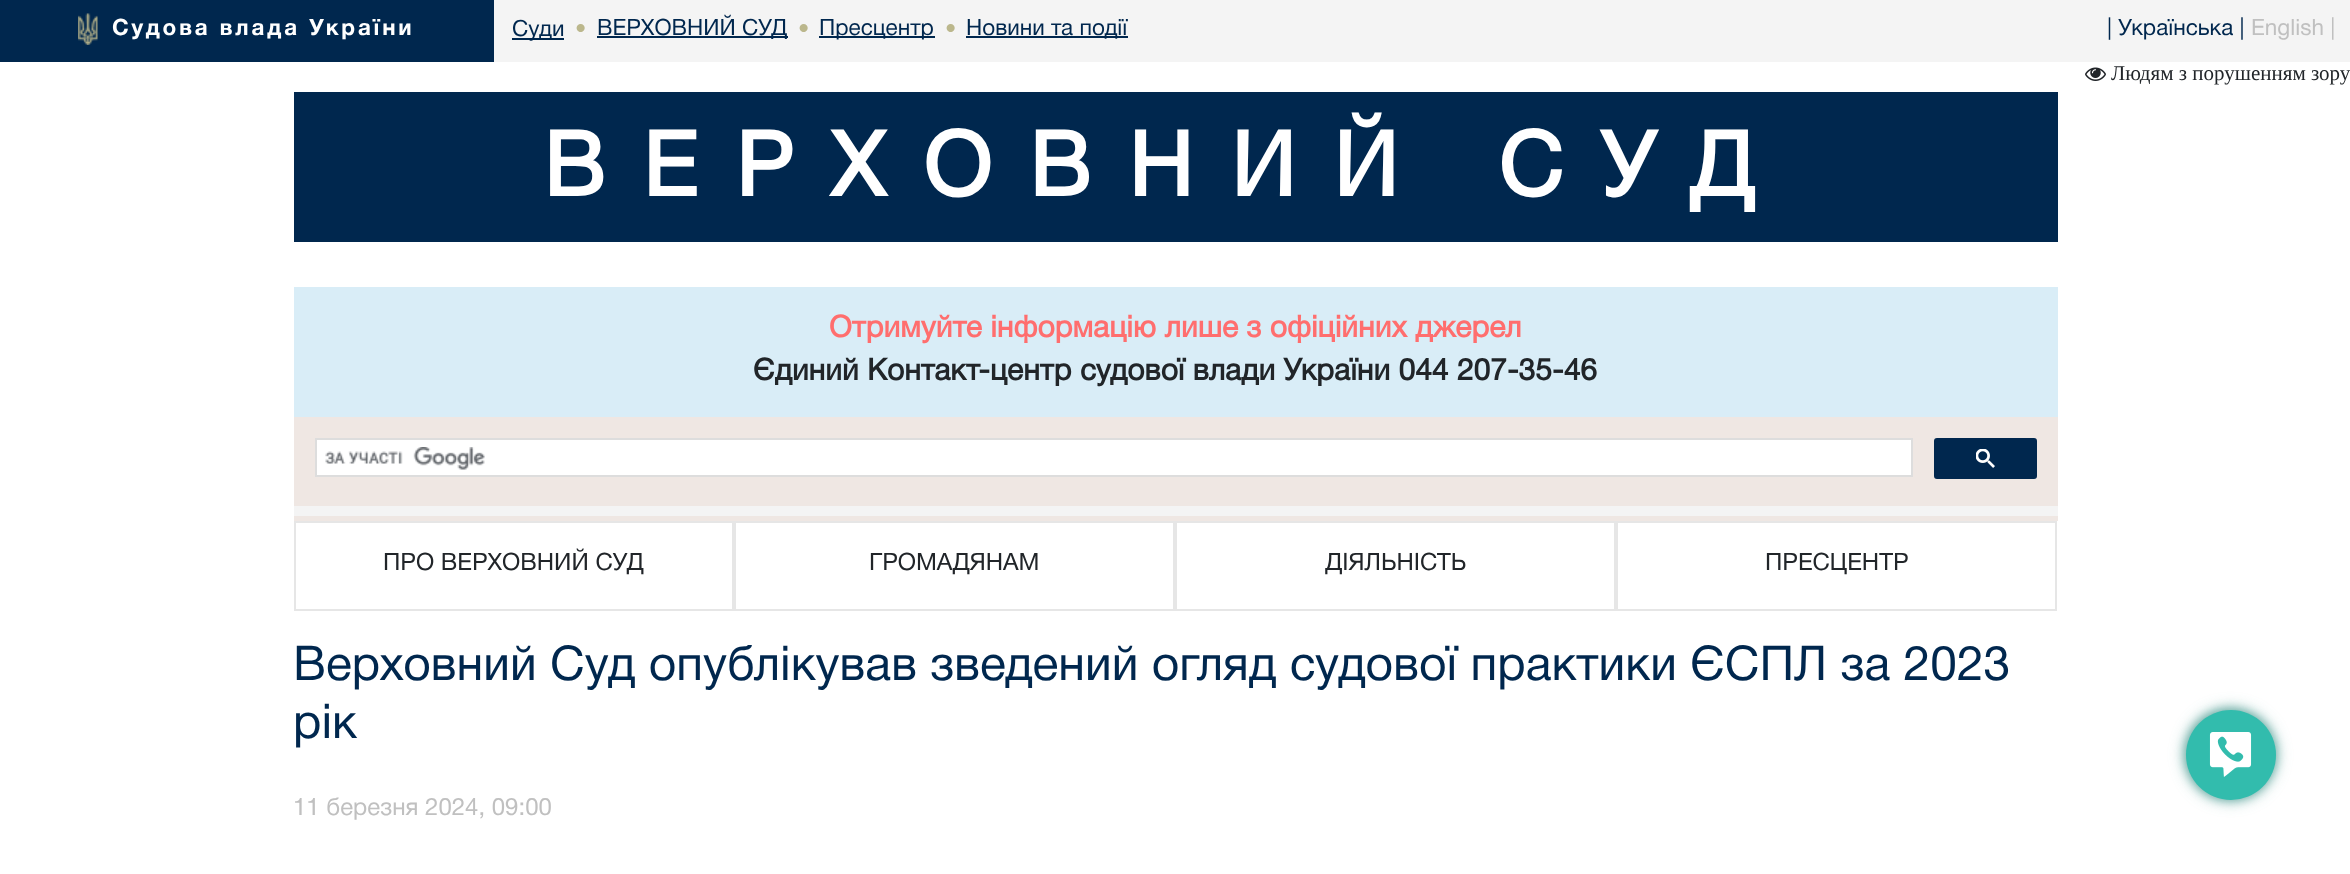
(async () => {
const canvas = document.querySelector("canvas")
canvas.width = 2350
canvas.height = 874
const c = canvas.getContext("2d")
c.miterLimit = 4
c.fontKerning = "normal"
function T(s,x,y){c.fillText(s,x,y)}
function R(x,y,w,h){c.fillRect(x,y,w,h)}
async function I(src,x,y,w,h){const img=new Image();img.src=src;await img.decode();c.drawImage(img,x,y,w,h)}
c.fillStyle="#fff"
R(0,0,2350,874)
c.fillStyle="#f4f4f4"
R(494,0,1856,62)
c.fillStyle="#00274e"
R(0,0,494,62)
await I("1.png",78,13,20,32)
c.letterSpacing="2.8px"
c.font="bold 22.5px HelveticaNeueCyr"
c.fillStyle="#fff"
T("Судова влада України",112,35)
c.fillStyle="#00274e"
R(512,38,52,2)
c.letterSpacing="0px"
c.font="22.5px HelveticaNeueCyr"
T("Суди",512,36)
c.letterSpacing="2.8px"
c.font="bold 22.5px HelveticaNeueCyr"
c.fillStyle="#bbb78c"
T("•",575,36)
c.fillStyle="#00274e"
R(597,36,191,2)
c.letterSpacing="0px"
c.font="22.5px HelveticaNeueCyr"
T("ВЕРХОВНИЙ СУД",597,35)
c.letterSpacing="2.8px"
c.font="bold 22.5px HelveticaNeueCyr"
c.fillStyle="#bbb78c"
T("•",798,36)
c.fillStyle="#00274e"
R(819,36,116,2)
c.letterSpacing="0px"
c.font="22.5px HelveticaNeueCyr"
T("Пресцентр",819,35)
c.letterSpacing="2.8px"
c.font="bold 22.5px HelveticaNeueCyr"
c.fillStyle="#bbb78c"
T("•",945,36)
c.fillStyle="#00274e"
R(966,36,162,2)
c.letterSpacing="0px"
c.font="22.5px HelveticaNeueCyr"
T("Новини та події",966,35)
T("| Українська |",2107,35)
c.fillStyle="#c0c0c0"
T("English |",2251,35)
await I("2.png",2085,67,21,14)
c.font="21px Liberation Serif"
c.fillStyle="#212529"
T("Людям з порушенням зору",2111,80)
c.fillStyle="#00274e"
R(294,92,1764,150)
c.letterSpacing="37.5px"
c.font="bold 90px 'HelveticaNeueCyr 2'"
c.fillStyle="#fff"
T("ВЕРХОВНИЙ СУД",543,196)
c.fillStyle="#d9edf7"
R(294,287,1764,130)
c.letterSpacing="0px"
c.font="bold 30px 'HelveticaNeueCyr 2'"
c.fillStyle="#ff6e6e"
T("Отримуйте інформацію лише з офіційних джерел",829,337)
c.fillStyle="#212529"
T("Єдиний Контакт-центр судової влади України 044 207-35-46",753,380)
c.fillStyle="#f4f4f4"
R(294,506,1764,10)
c.fillStyle="#efe7e3"
R(294,417,1764,89)
c.fillStyle="#fff"
c.beginPath()
c.rect(316,439,1596,37)
c.fill()
c.strokeStyle="#ddd"
c.lineWidth=2
c.stroke()
await I("3.png",325,447,160,23)
c.fillStyle="#00274e"
c.beginPath()
c.roundRect(1935,439,101,39,2)
c.fill()
c.strokeStyle="#00274e"
c.stroke()
await I("4.png",1976,449,19,19)
c.fillStyle="#efe7e3"
R(294,516,1764,5)
c.strokeStyle="#e6e6e6"
c.strokeRect(295,522,438,88)
c.font="24px HelveticaNeueCyr"
c.fillStyle="#212529"
T("ПРО ВЕРХОВНИЙ СУД",383,570)
c.strokeRect(735,522,439,88)
T("ГРОМАДЯНАМ",869,570)
c.strokeRect(1176,522,439,88)
T("ДІЯЛЬНІСТЬ",1325,570)
c.strokeRect(1617,522,439,88)
T("ПРЕСЦЕНТР",1765,570)
c.font="48px HelveticaNeueCyr"
c.fillStyle="#00274e"
T("Верховний Суд опублікував зведений огляд судової практики ЄСПЛ за 2023",293,680)
T("рік",293,738)
c.fillStyle="#2182776b"
c.filter="blur(7.5px)"
c.beginPath()
c.roundRect(2184,708,93,93,46.5)
c.fill()
c.filter="none"
c.fillStyle="#21827775"
c.filter="blur(4px)"
c.beginPath()
c.roundRect(2184,708,93,93,46.5)
c.fill()
c.filter="none"
c.fillStyle="#32bcad"
c.beginPath()
c.arc(2231,755,45,0,7)
c.fill()
await I("5.png",2209,732,43,45)
c.font="24px HelveticaNeueCyr"
c.fillStyle="#c0c0c0"
T("11 березня 2024, 09:00",293,815)
})()
